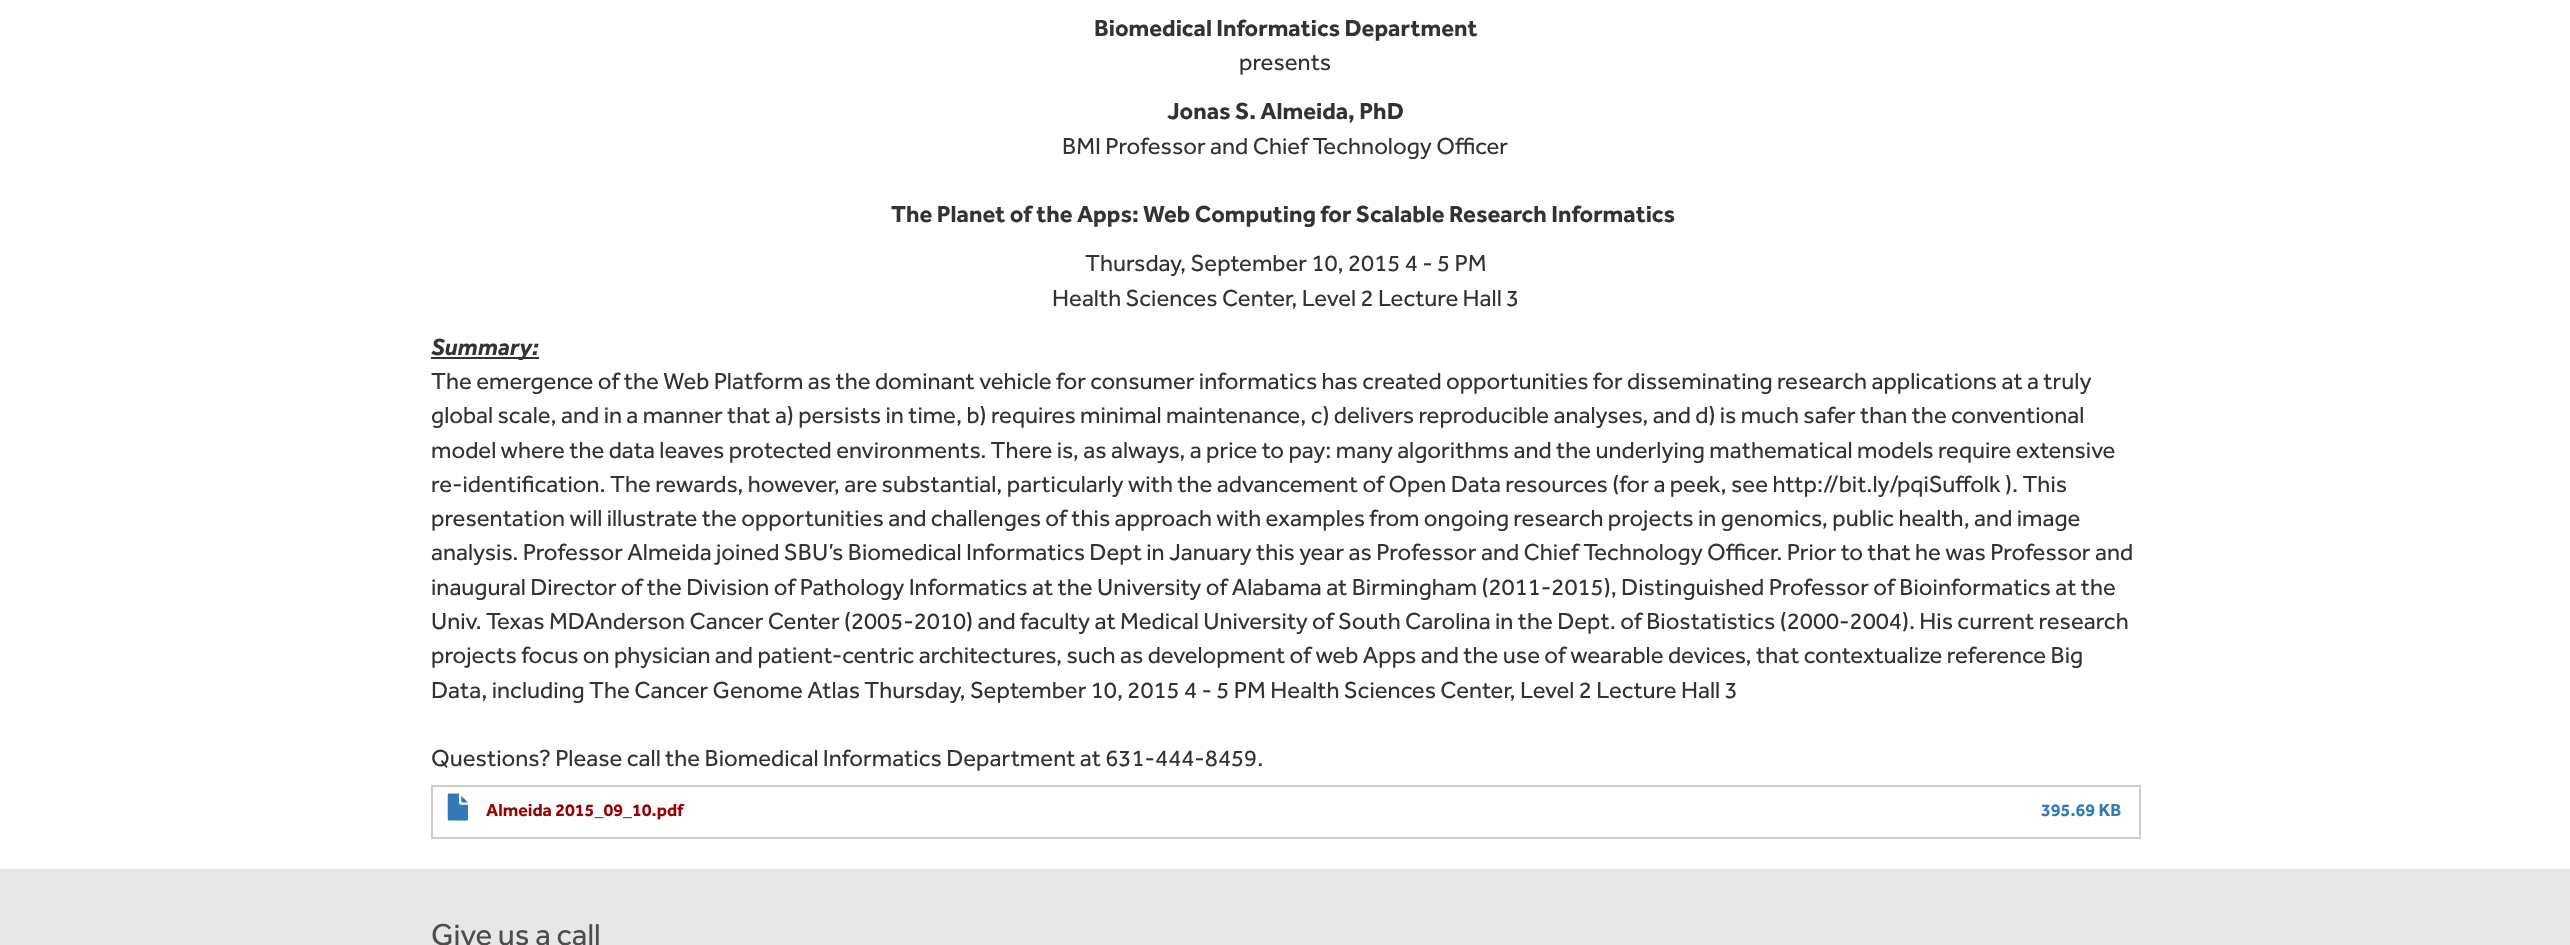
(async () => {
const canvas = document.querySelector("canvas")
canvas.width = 2570
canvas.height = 945
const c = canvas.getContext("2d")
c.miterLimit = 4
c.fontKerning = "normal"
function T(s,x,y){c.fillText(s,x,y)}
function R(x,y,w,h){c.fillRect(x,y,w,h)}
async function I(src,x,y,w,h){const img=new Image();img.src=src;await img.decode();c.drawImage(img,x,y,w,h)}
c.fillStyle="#fff"
R(0,0,2570,945)
c.font="bold 24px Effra"
c.fillStyle="#333"
T("Biomedical Informatics Department",1094,36)
c.font="24px Effra"
T("presents",1239,70)
c.font="bold 24px Effra"
T("Jonas S. Almeida, PhD",1167,119)
c.font="24px Effra"
T("BMI Professor and Chief Technology Officer",1062,154)
c.font="bold 24px Effra"
T("The Planet of the Apps: Web Computing for Scalable Research Informatics",891,222)
c.font="24px Effra"
T("Thursday, September 10, 2015 4 - 5 PM",1085,271)
T("Health Sciences Center, Level 2 Lecture Hall 3",1052,306)
R(431,357,108,2)
c.font="italic bold 24px Effra"
T("Summary:",431,355)
c.font="24px Effra"
T("The emergence of the Web Platform as the dominant vehicle for consumer informatics has created opportunities for disseminating research applications at a truly",431,389)
T("global scale, and in a manner that a) persists in time, b) requires minimal maintenance, c) delivers reproducible analyses, and d) is much safer than the conventional",431,423)
T("model where the data leaves protected environments. There is, as always, a price to pay: many algorithms and the underlying mathematical models require extensive",431,458)
T("re-identification. The rewards, however, are substantial, particularly with the advancement of Open Data resources (for a peek, see http://bit.ly/pqiSuffolk ). This",431,492)
T("presentation will illustrate the opportunities and challenges of this approach with examples from ongoing research projects in genomics, public health, and image",431,526)
T("analysis. Professor Almeida joined SBU’s Biomedical Informatics Dept in January this year as Professor and Chief Technology Officer. Prior to that he was Professor and",431,560)
T("inaugural Director of the Division of Pathology Informatics at the University of Alabama at Birmingham (2011-2015), Distinguished Professor of Bioinformatics at the",431,595)
T("Univ. Texas MDAnderson Cancer Center (2005-2010) and faculty at Medical University of South Carolina in the Dept. of Biostatistics (2000-2004). His current research",431,629)
T("projects focus on physician and patient-centric architectures, such as development of web Apps and the use of wearable devices, that contextualize reference Big",431,663)
T("Data, including The Cancer Genome Atlas Thursday, September 10, 2015 4 - 5 PM Health Sciences Center, Level 2 Lecture Hall 3",431,698)
T("Questions? Please call the Biomedical Informatics Department at 631-444-8459.",431,766)
c.fillStyle="#ccc"
R(431,785,1710,2)
R(431,837,1593,2)
R(431,785,2,54)
await I("1.png",447,793,21,28)
c.font="bold 18px Effra"
c.fillStyle="#900"
T("Almeida 2015_09_10.pdf",486,816)
c.fillStyle="#ccc"
R(2139,785,2,54)
R(2024,837,117,2)
c.fillStyle="#337ab7"
T("395.69 KB",2041,816)
c.fillStyle="#e7e7e8"
R(0,869,2570,76)
c.font="31.25px Effra"
c.fillStyle="#4c4d4f"
T("Give us a call",431,945)
})()
